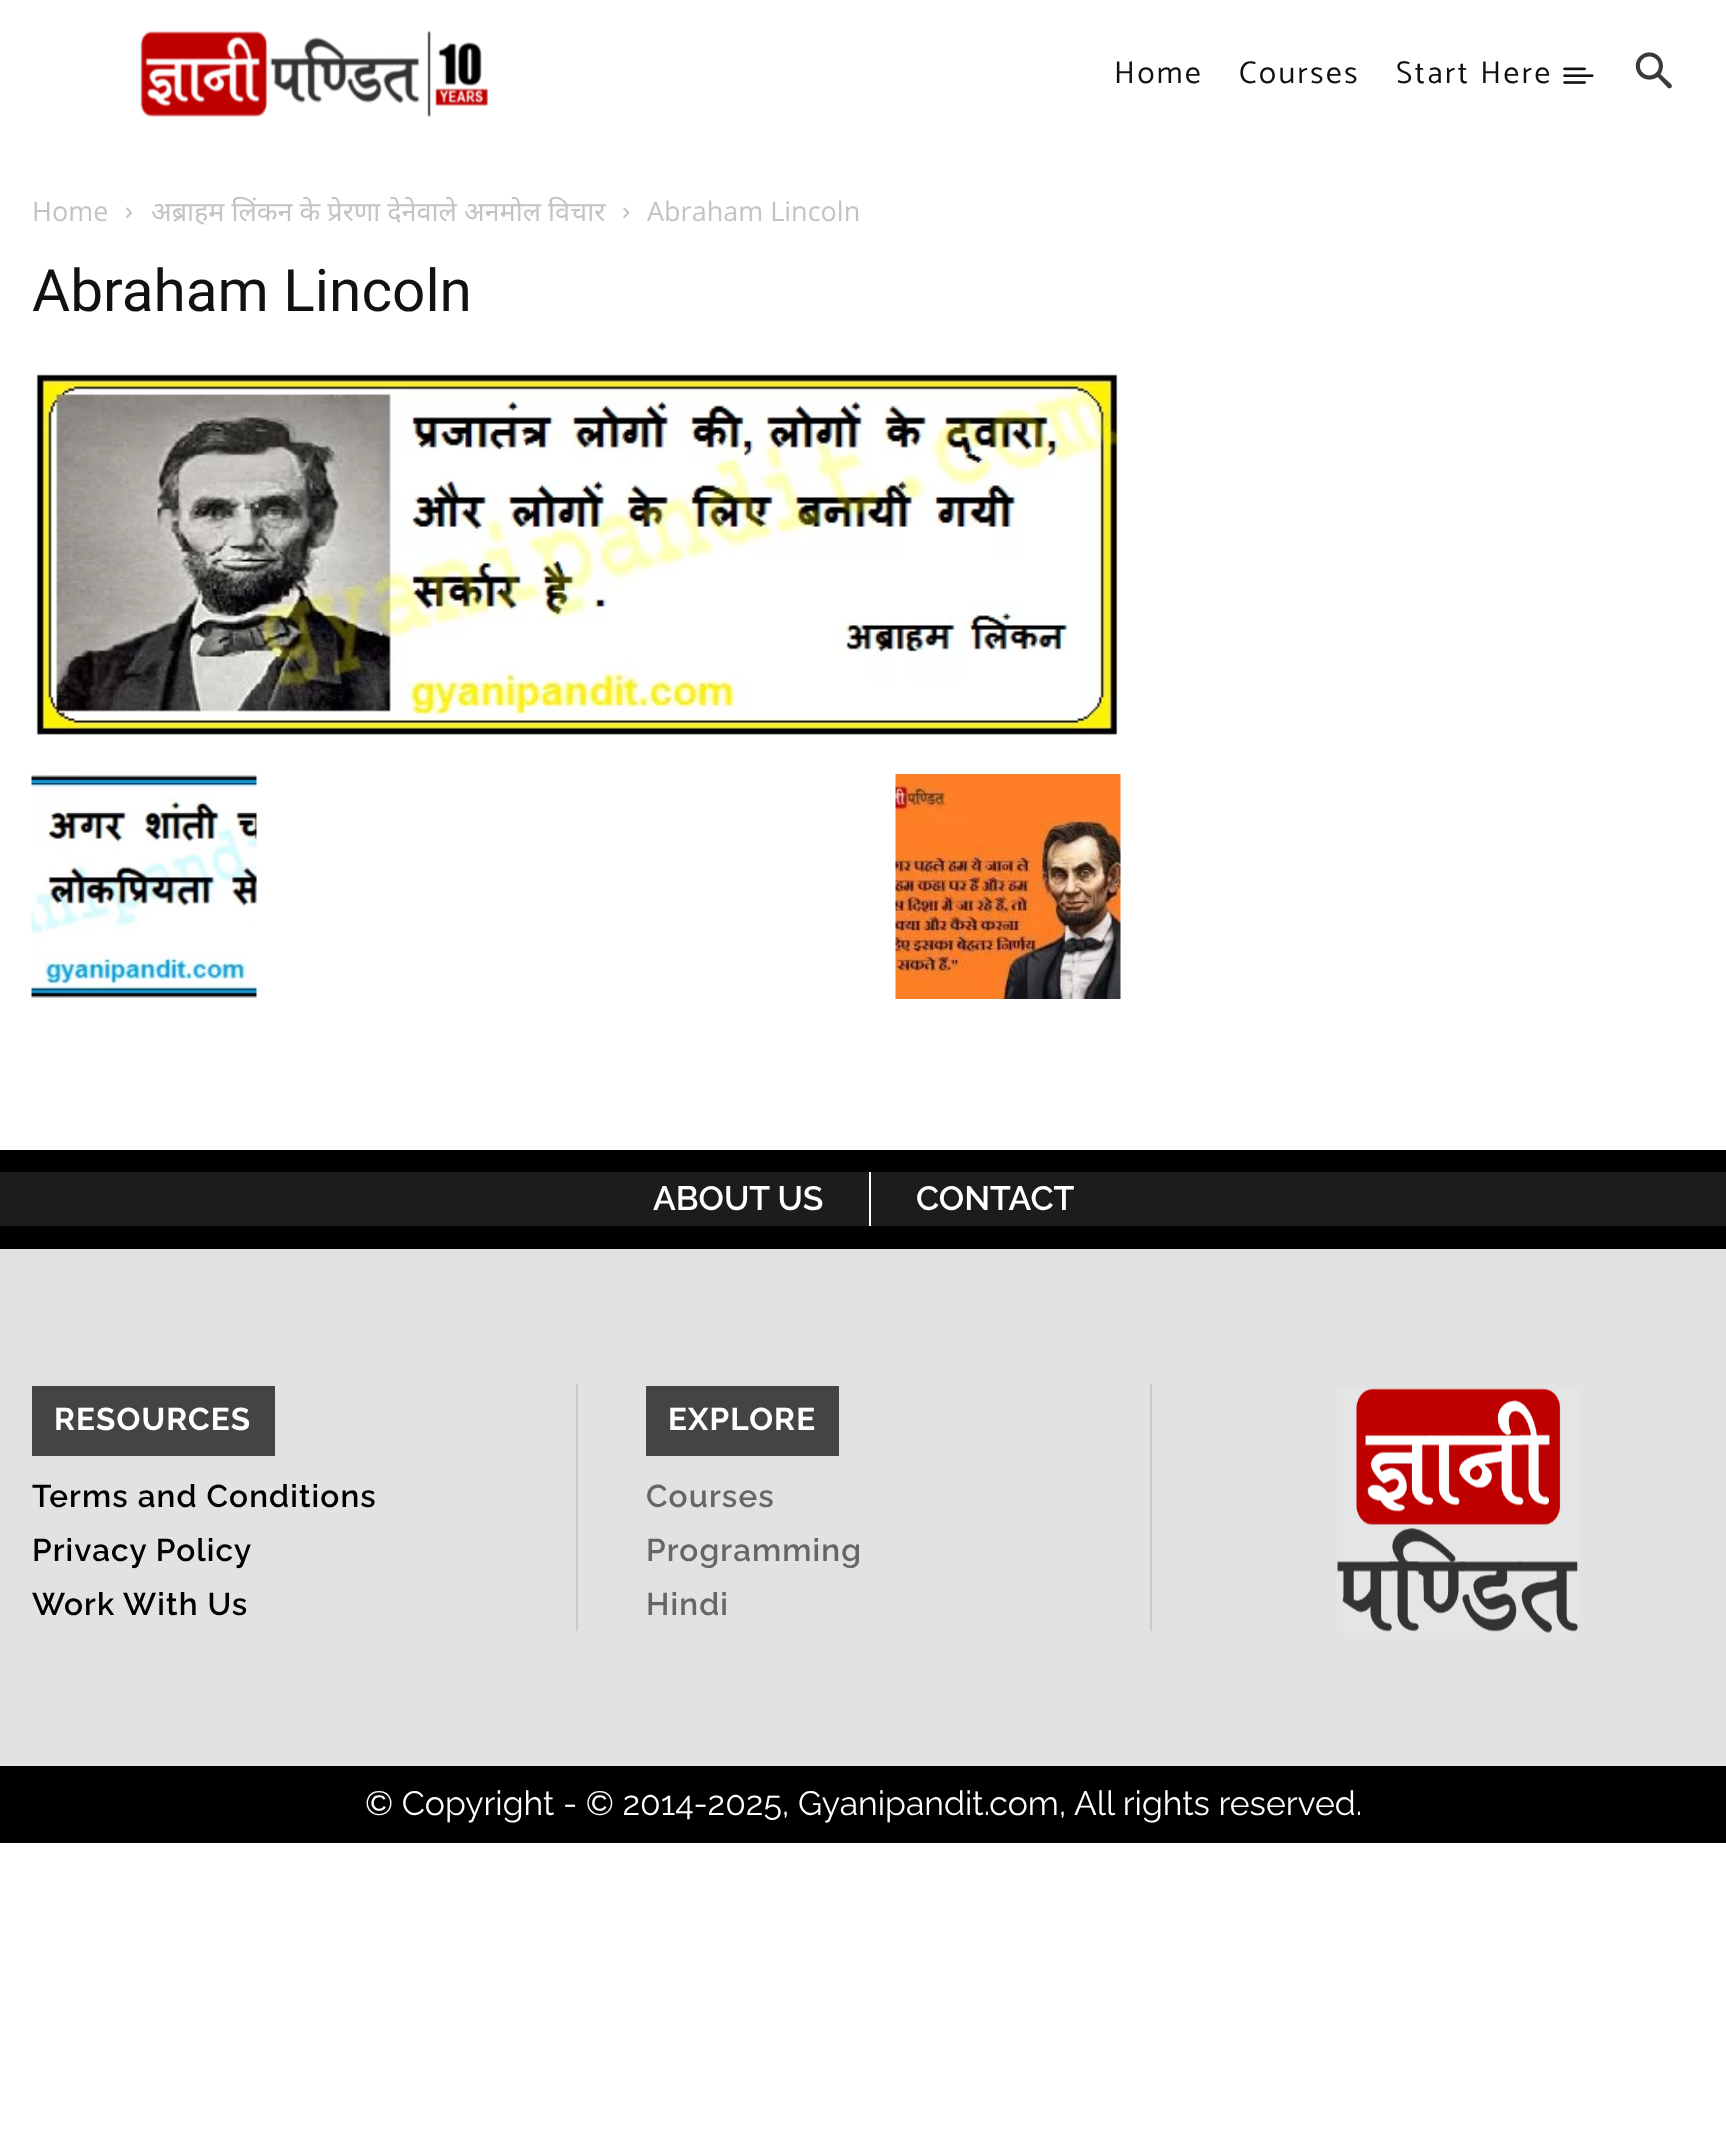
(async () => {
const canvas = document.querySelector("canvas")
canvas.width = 1726
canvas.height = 2150
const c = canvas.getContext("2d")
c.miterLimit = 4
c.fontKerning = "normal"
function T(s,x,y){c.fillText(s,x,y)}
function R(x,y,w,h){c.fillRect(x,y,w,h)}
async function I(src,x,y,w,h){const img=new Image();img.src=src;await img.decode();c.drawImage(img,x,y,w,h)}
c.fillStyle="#fff"
R(0,0,1726,2150)
await I("1.png",140,30,348,87)
c.letterSpacing="2.5px"
c.font="31.5px Catamaran"
c.fillStyle="#111"
T("Home",1114,83)
T("Courses",1239,83)
T("Start Here",1396,83)
await I("2.png",1563,67,31,17)
await I("3.png",1635,52,37,37)
c.letterSpacing="0px"
c.font="27px Open Sans"
c.fillStyle="#c3c3c3"
T("Home",32,221)
await I("4.png",126,207,6,11)
c.font="27px Noto Sans"
T("अब्राहम लिंकन के प्रेरणा देनेवाले अनमोल विचार",151,221)
await I("5.png",623,207,7,11)
c.font="27px Open Sans"
T("Abraham Lincoln",647,221)
c.font="58.5px Roboto"
c.fillStyle="#111"
T("Abraham Lincoln",32,311)
await I("6.png",31,371,1090,364)
await I("7.png",31,775,226,224)
await I("8.png",895,774,226,225)
c.fillStyle="#000"
R(0,1150,1726,99)
c.fillStyle="#1c1c1c"
R(0,1172,1726,54)
c.fillStyle="#fff"
R(869,1172,2,54)
c.font="600 33.75px Raleway"
T("ABOUT US",653,1210)
T("CONTACT",916,1210)
c.fillStyle="#e2e2e2"
R(0,1249,1726,517)
c.fillStyle="#444"
R(32,1386,243,70)
c.letterSpacing="1.1px"
c.font="bold 31.5px Raleway"
c.fillStyle="#fff"
T("RESOURCES",54,1430)
c.font="600 31.5px Raleway"
c.fillStyle="#000"
T("Terms and Conditions",32,1507)
T("Privacy Policy",32,1561)
T("Work With Us",32,1615)
c.fillStyle="#c9c9c9"
R(1150,1384,2,247)
R(576,1384,2,247)
c.fillStyle="#444"
R(646,1386,193,70)
c.font="bold 31.5px Raleway"
c.fillStyle="#fff"
T("EXPLORE",668,1430)
c.font="600 31.5px Raleway"
c.fillStyle="#666"
T("Courses",646,1507)
T("Programming",646,1561)
T("Hindi",646,1615)
await I("9.png",1337,1388,241,245)
c.fillStyle="#000"
R(0,1766,1726,77)
c.letterSpacing="0px"
c.font="33.75px Raleway"
c.fillStyle="#fff"
T("© Copyright - © 2014-2025, Gyanipandit.com, All rights reserved.",365,1815)
})()
